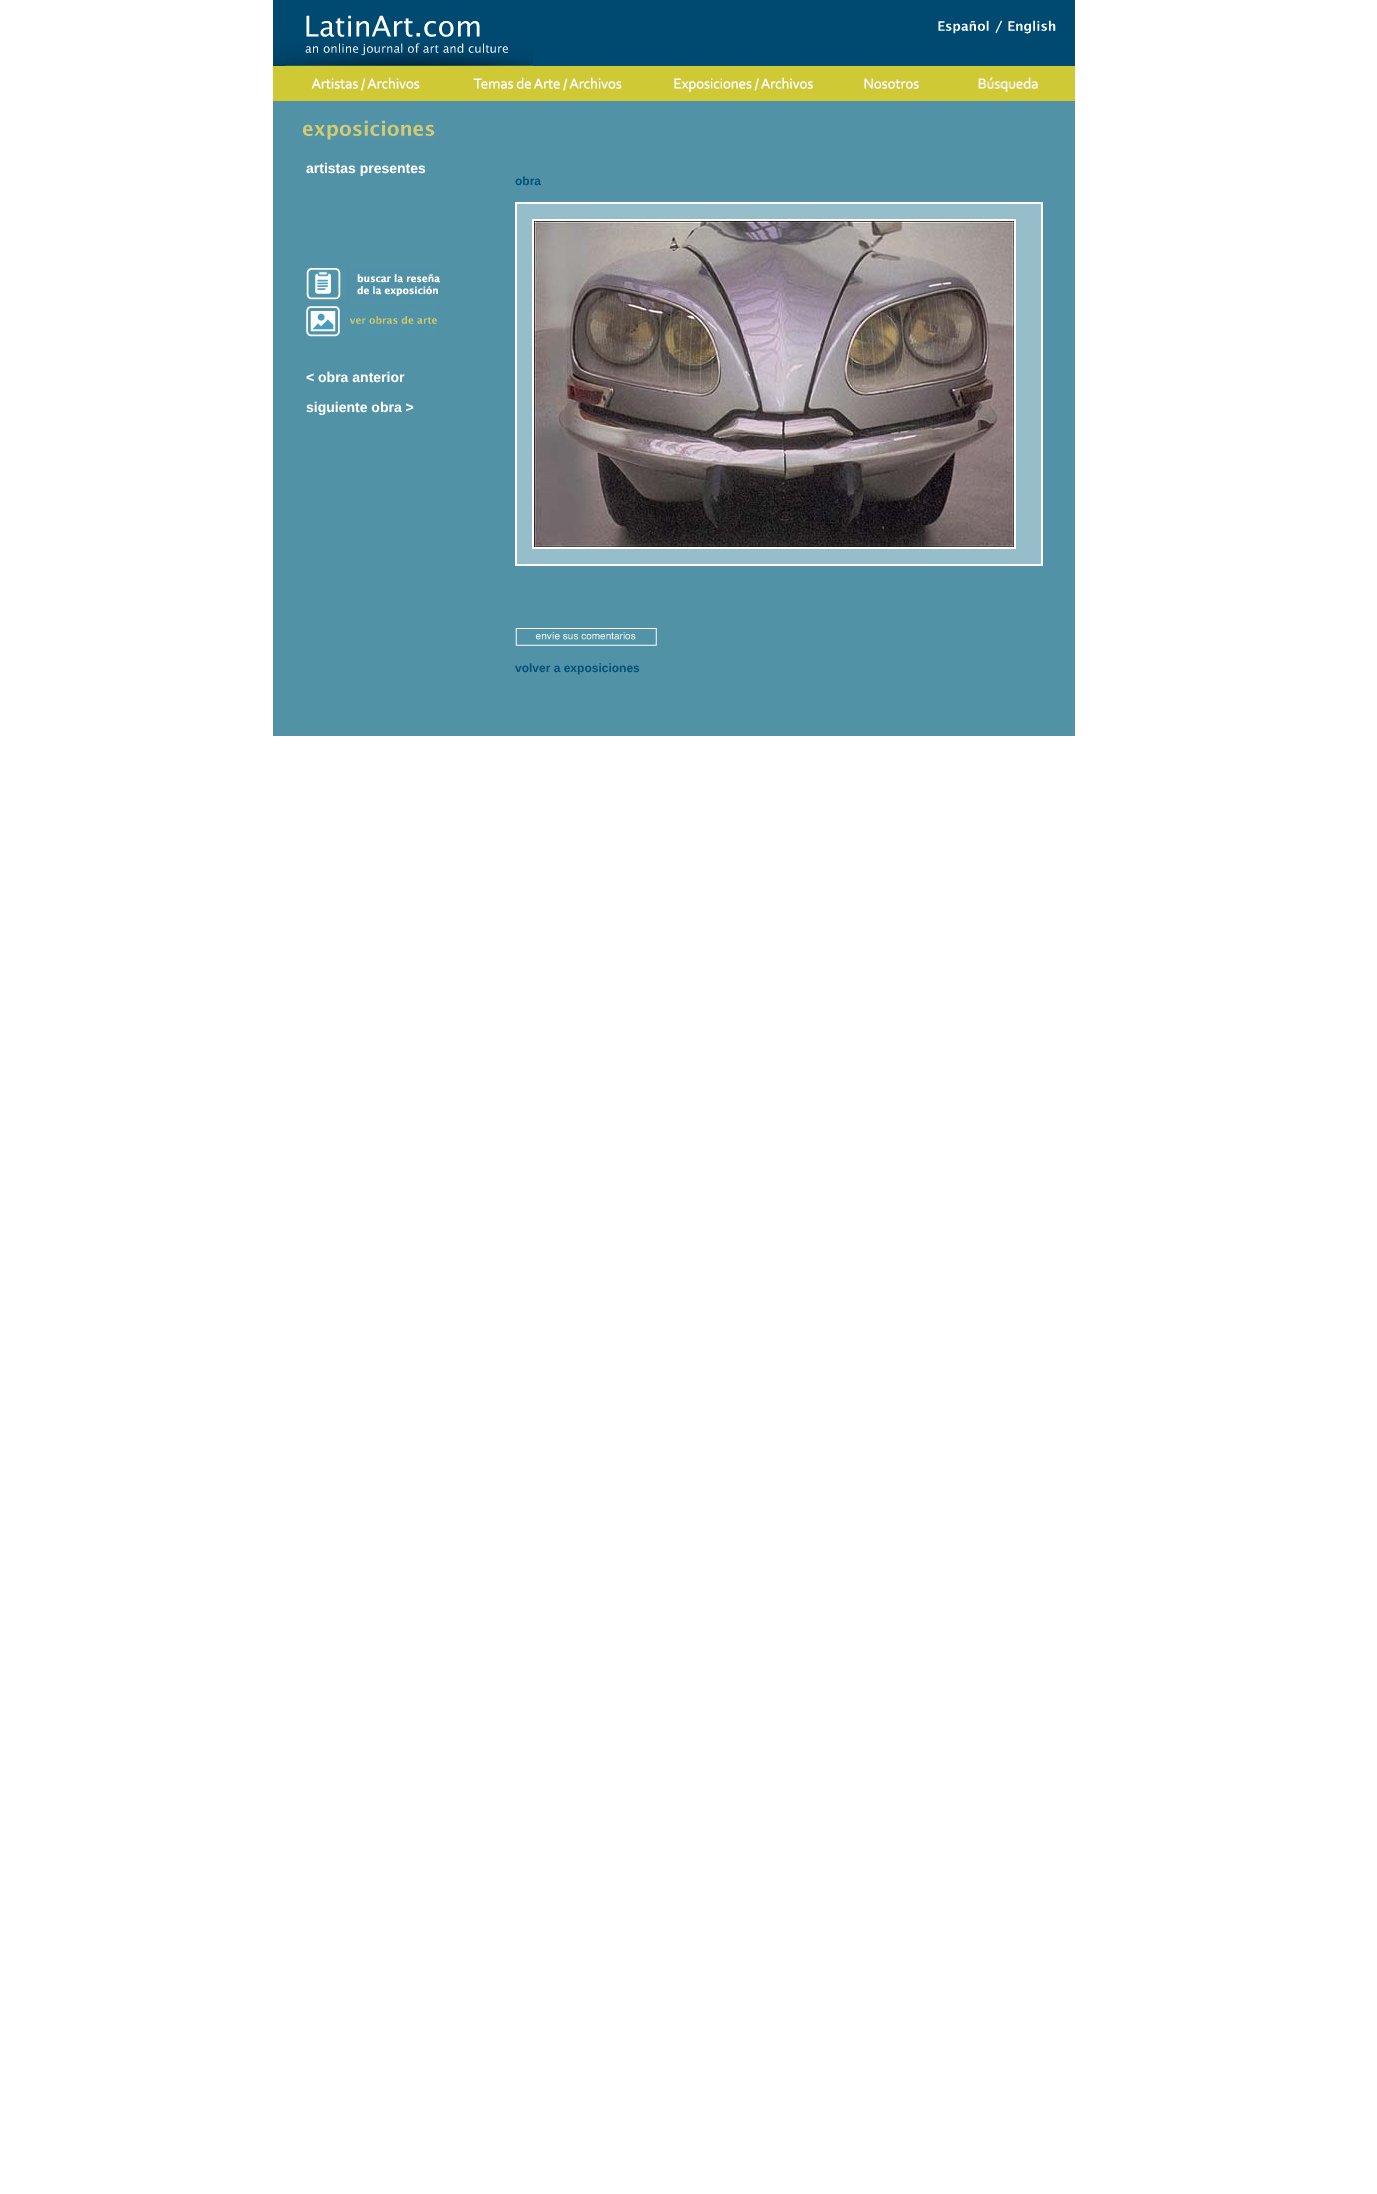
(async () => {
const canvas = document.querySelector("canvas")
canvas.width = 1377
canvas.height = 2194
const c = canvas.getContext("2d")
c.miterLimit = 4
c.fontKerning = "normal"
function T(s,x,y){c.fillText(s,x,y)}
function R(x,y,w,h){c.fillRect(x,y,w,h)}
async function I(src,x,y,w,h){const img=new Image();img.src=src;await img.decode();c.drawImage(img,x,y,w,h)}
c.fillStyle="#fff"
R(0,0,1377,2194)
c.fillStyle="#004971"
R(273,0,802,66)
await I("1.png",273,15,260,51)
await I("2.png",938,20,118,14)
c.fillStyle="#cfc936"
R(273,66,802,35)
await I("3.png",311,77,109,14)
await I("4.png",473,77,149,14)
await I("5.png",674,77,139,15)
await I("6.png",864,78,55,11)
await I("7.png",978,77,60,15)
c.fillStyle="#5192a6"
R(273,101,802,635)
await I("8.png",303,120,132,20)
c.font="bold 14px Liberation Sans"
c.fillStyle="#fff"
T("artistas presentes",306,173)
await I("9.png",306,268,134,32)
await I("10.png",306,306,131,31)
T("< obra anterior",306,382)
T("siguiente obra >",306,412)
c.font="bold 12px Liberation Sans"
c.fillStyle="#00527a"
T("obra",515,185)
c.fillStyle="#96beca"
c.beginPath()
c.rect(516,203,526,362)
c.fill()
c.strokeStyle="#fff"
c.lineWidth=2
c.stroke()
c.strokeRect(533,220,482,328)
await I("11.png",534,221,480,326)
await I("12.png",515,628,142,18)
c.fillStyle="#00527a"
T("volver a exposiciones",515,672)
})()
